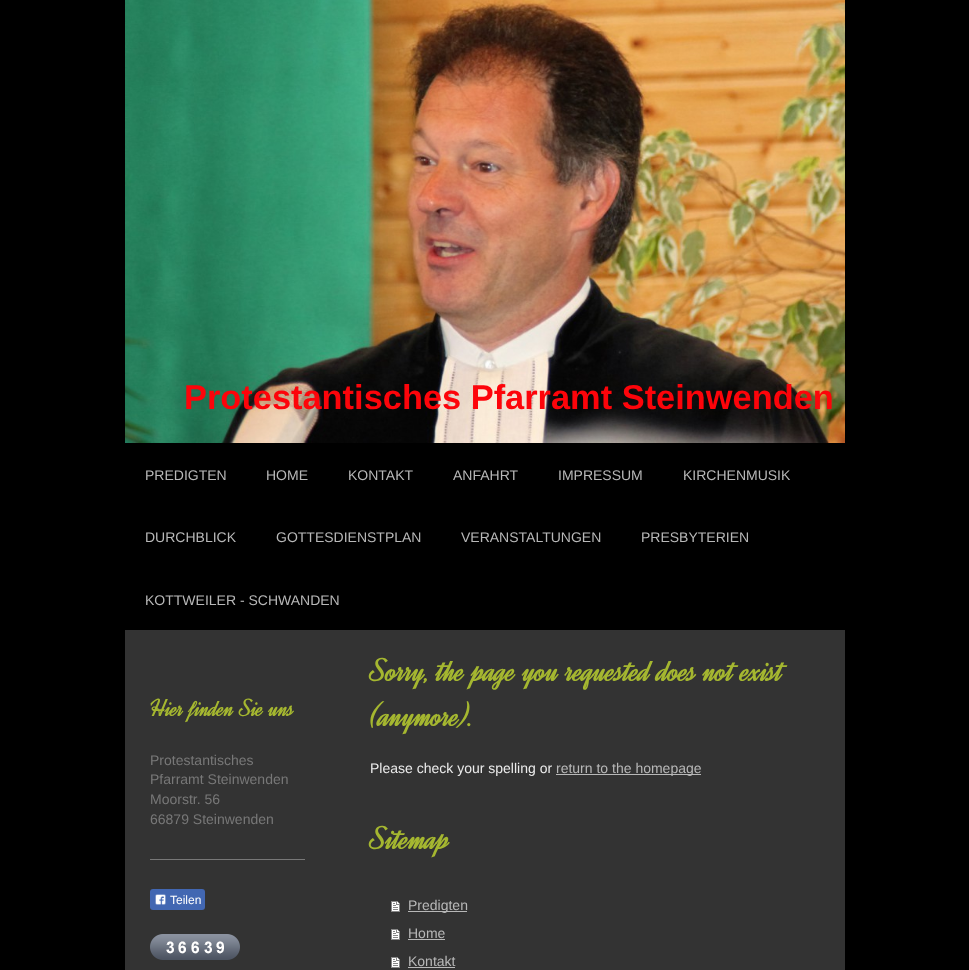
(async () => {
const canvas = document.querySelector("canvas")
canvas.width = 969
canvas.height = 970
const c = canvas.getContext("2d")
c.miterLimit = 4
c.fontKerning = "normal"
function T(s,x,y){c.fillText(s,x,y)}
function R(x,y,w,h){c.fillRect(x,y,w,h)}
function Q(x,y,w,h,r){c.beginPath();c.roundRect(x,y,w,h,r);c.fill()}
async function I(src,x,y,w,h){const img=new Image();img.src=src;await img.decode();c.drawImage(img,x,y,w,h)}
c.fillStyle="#000"
R(0,0,969,970)
await I("1.png",125,0,720,443)
c.font="bold 34.4px Liberation Sans"
c.fillStyle="#fd040a"
T("Protestantisches Pfarramt Steinwenden",184,409)
c.font="14px Liberation Sans"
c.fillStyle="#b8b8b8"
T("PREDIGTEN",145,480)
T("HOME",266,480)
T("KONTAKT",348,480)
T("ANFAHRT",453,480)
T("IMPRESSUM",558,480)
T("KIRCHENMUSIK",683,480)
T("DURCHBLICK",145,542)
T("GOTTESDIENSTPLAN",276,542)
T("VERANSTALTUNGEN",461,542)
T("PRESBYTERIEN",641,542)
T("KOTTWEILER - SCHWANDEN",145,605)
c.fillStyle="#333"
R(125,630,720,340)
c.font="bold 24px Dynalight"
c.fillStyle="#a5b730"
T("Hier finden Sie uns",150,716)
c.font="14px Liberation Sans"
c.fillStyle="#787878"
T("Protestantisches",150,765)
T("Pfarramt Steinwenden",150,784)
T("Moorstr. 56",150,804)
T("66879 Steinwenden",150,824)
R(150,859,155,1)
c.fillStyle="#4267b2"
Q(150,889,55,21,3)
await I("2.png",155,894,11,11)
c.font="12px Liberation Sans"
c.fillStyle="#fff"
T("Teilen",170,904)
await I("3.png",150,934,14,26)
await I("4.png",164,934,12,26)
await I("5.png",176,934,13,26)
await I("5.png",189,934,13,26)
await I("4.png",202,934,12,26)
await I("6.png",214,934,13,26)
await I("7.png",227,934,13,26)
c.font="bold 32px Dynalight"
c.fillStyle="#a5b730"
T("Sorry, the page you requested does not exist",370,681)
T("(anymore).",370,726)
c.font="14px Liberation Sans"
c.fillStyle="#ebebeb"
T("Please check your spelling or",370,773)
c.fillStyle="#b8b8b8"
R(556,774,145,1)
T("return to the homepage",556,773)
c.font="bold 32px Dynalight"
c.fillStyle="#a5b730"
T("Sitemap",370,849)
await I("8.png",391,901,9,11)
c.fillStyle="#b8b8b8"
R(408,911,59,1)
c.font="14px Liberation Sans"
T("Predigten",408,910)
await I("8.png",391,929,9,11)
T("Home",408,938)
R(408,939,37,1)
await I("8.png",391,957,9,11)
T("Kontakt",408,966)
R(408,967,47,1)
})()
